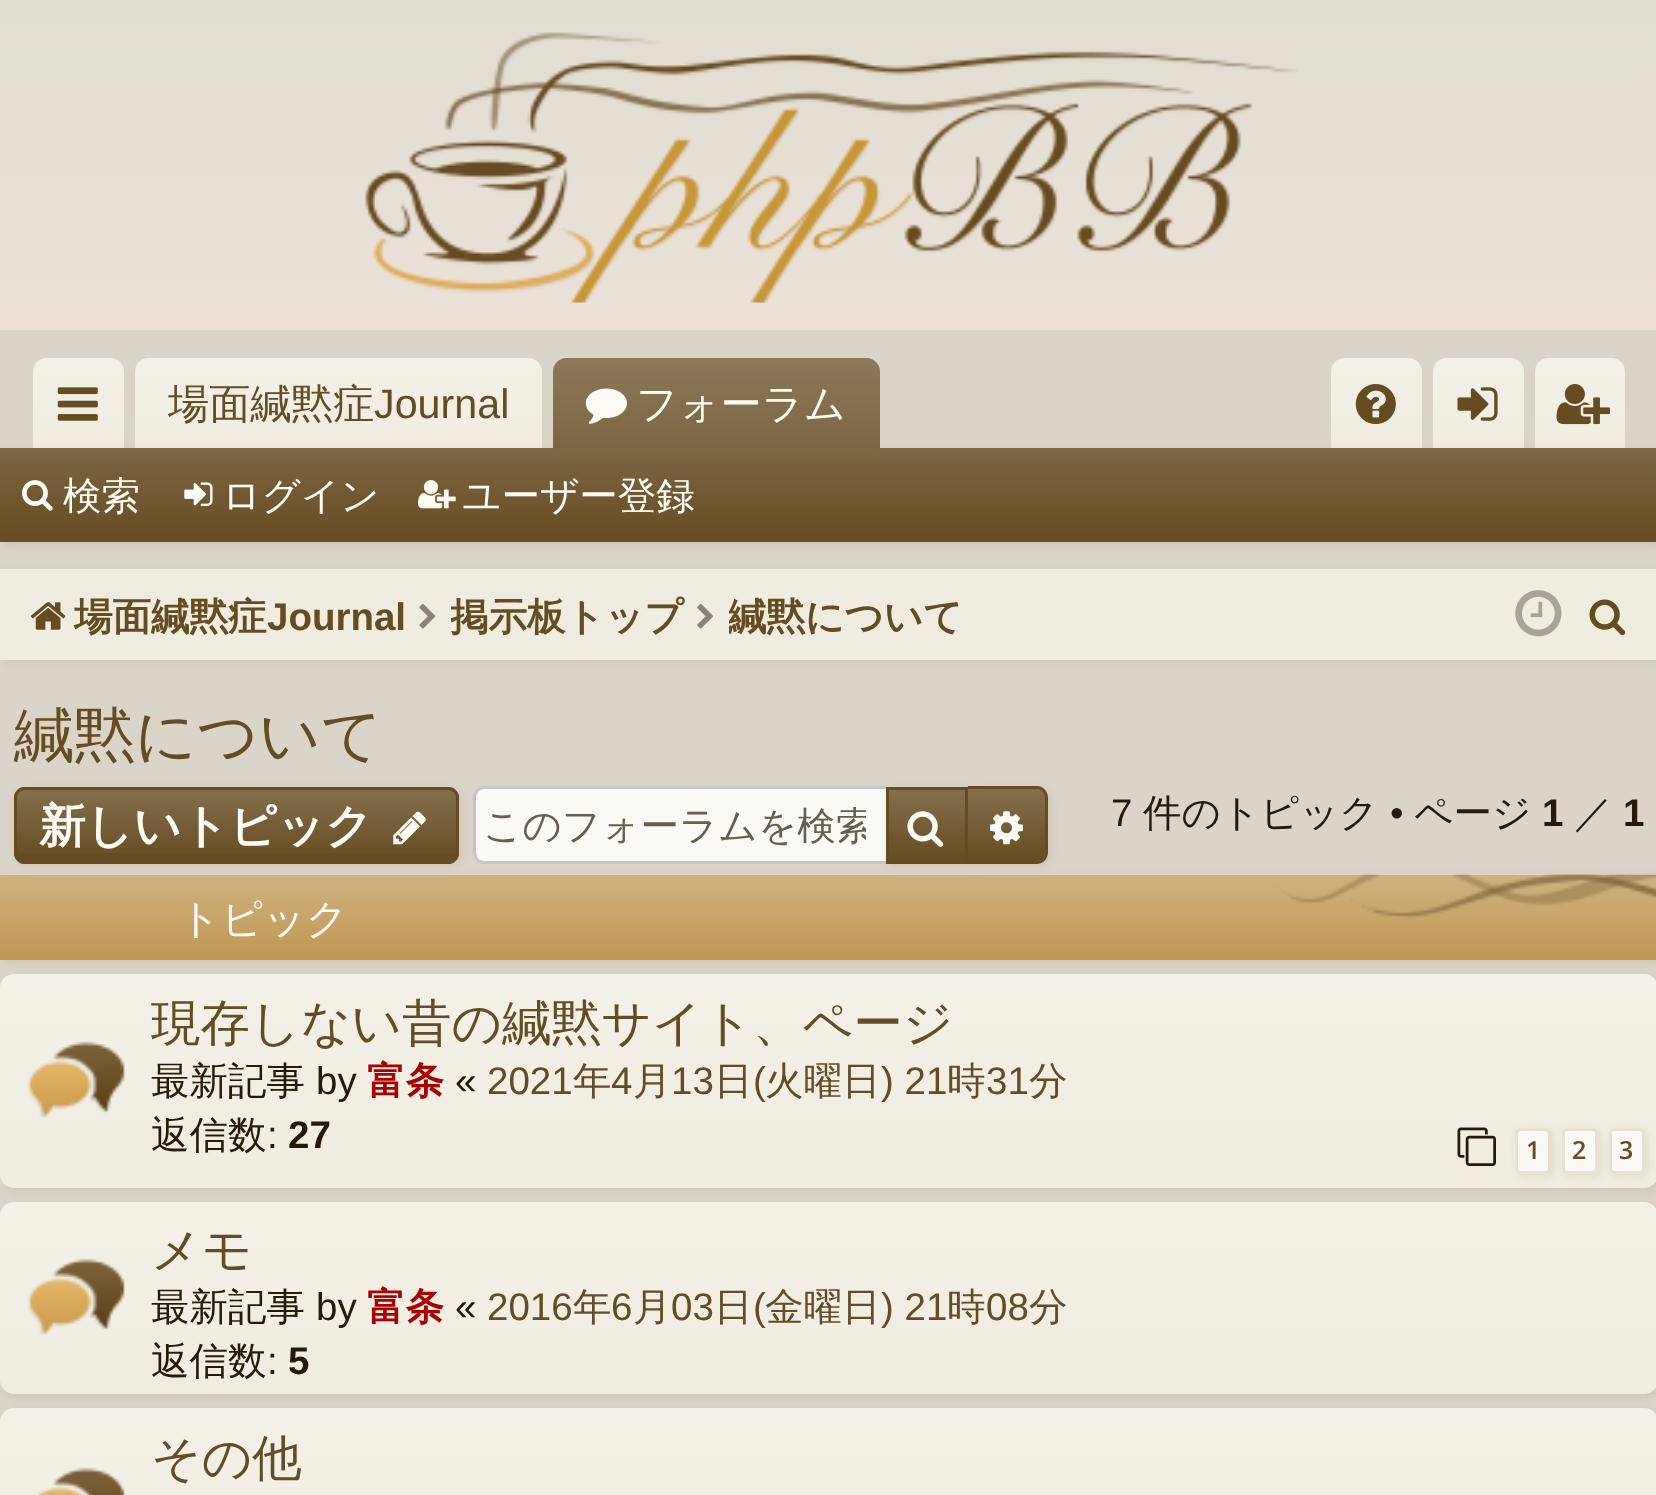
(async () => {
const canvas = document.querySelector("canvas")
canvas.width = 1656
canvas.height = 1495
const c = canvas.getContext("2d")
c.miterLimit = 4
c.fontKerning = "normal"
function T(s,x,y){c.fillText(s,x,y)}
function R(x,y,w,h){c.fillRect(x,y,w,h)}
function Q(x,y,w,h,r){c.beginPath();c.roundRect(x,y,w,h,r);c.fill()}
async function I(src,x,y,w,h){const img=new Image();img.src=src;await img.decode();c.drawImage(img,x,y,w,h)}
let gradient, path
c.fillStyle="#fff"
R(0,0,1656,1495)
gradient = c.createLinearGradient(829,0,829,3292)
gradient.addColorStop(0,"#e2ddd1")
gradient.addColorStop(.17,"#f2e5dc")
gradient.addColorStop(1,"#f9e9e1")
c.fillStyle = gradient
R(0,0,1656,330)
await I("1.png",365,32,933,271)
c.fillStyle="#dbd5c9"
R(0,330,1656,1092)
c.fillStyle="#f0ece0"
c.beginPath()
c.roundRect(33,358,91,90,[14,14,0,0])
c.fill()
gradient = c.createLinearGradient(78,358,78,448)
gradient.addColorStop(0,"#ffffff40")
gradient.addColorStop(1,"#ffffff00")
c.fillStyle = gradient
c.beginPath()
c.roundRect(33,358,91,90,[14,14,0,0])
c.fill()
await I("2.png",57,387,41,34)
c.fillStyle="#f0ece0"
c.beginPath()
c.roundRect(135,358,407,90,[14,14,0,0])
c.fill()
gradient = c.createLinearGradient(338,358,338,448)
gradient.addColorStop(0,"#ffffff40")
gradient.addColorStop(1,"#ffffff00")
c.fillStyle = gradient
c.beginPath()
c.roundRect(135,358,407,90,[14,14,0,0])
c.fill()
c.font="500 41.25px WenQuanYi Zen Hei"
c.fillStyle="#654c22"
T("場面緘黙症",168,418)
c.font="41.25px Liberation Sans"
T("Journal",374,418)
c.beginPath()
c.roundRect(553,358,327,90,[14,14,0,0])
c.fill()
gradient = c.createLinearGradient(716,358,716,448)
gradient.addColorStop(0,"#ffffff40")
gradient.addColorStop(1,"#ffffff26")
c.fillStyle = gradient
c.beginPath()
c.roundRect(553,358,327,90,[14,14,0,0])
c.fill()
await I("3.png",585,388,42,36)
c.font="500 41.25px WenQuanYi Zen Hei"
c.fillStyle="#fefbf5"
T("フォーラム",636,418)
c.fillStyle="#f0ece0"
c.beginPath()
c.roundRect(1331,358,91,90,[14,14,0,0])
c.fill()
gradient = c.createLinearGradient(1376,358,1376,448)
gradient.addColorStop(0,"#ffffff40")
gradient.addColorStop(1,"#ffffff00")
c.fillStyle = gradient
c.beginPath()
c.roundRect(1331,358,91,90,[14,14,0,0])
c.fill()
c.fillStyle="#f0ece0"
c.beginPath()
c.roundRect(1433,358,91,90,[14,14,0,0])
c.fill()
gradient = c.createLinearGradient(1478,358,1478,448)
gradient.addColorStop(0,"#ffffff40")
gradient.addColorStop(1,"#ffffff00")
c.fillStyle = gradient
c.beginPath()
c.roundRect(1433,358,91,90,[14,14,0,0])
c.fill()
c.fillStyle="#f0ece0"
c.beginPath()
c.roundRect(1535,358,90,90,[14,14,0,0])
c.fill()
gradient = c.createLinearGradient(1580,358,1580,448)
gradient.addColorStop(0,"#ffffff40")
gradient.addColorStop(1,"#ffffff00")
c.fillStyle = gradient
c.beginPath()
c.roundRect(1535,358,90,90,[14,14,0,0])
c.fill()
c.fillStyle="#654c221a"
c.filter="blur(4px)"
c.beginPath()
c.rect(3,451,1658,94)
c.fill()
c.filter="none"
gradient = c.createLinearGradient(829,448,829,542)
gradient.addColorStop(0,"#7c6743")
gradient.addColorStop(1,"#654c22")
c.fillStyle = gradient
R(0,448,1656,94)
c.fillStyle="#654c22"
c.beginPath()
c.roundRect(553,446,327,6,[6,6,0,0])
c.fill()
c.fillStyle="#ffffff26"
c.beginPath()
c.roundRect(553,446,327,6,[6,6,0,0])
c.fill()
await I("4.png",1355,384,41,41)
await I("5.png",1457,387,41,34)
await I("6.png",1556,384,54,41)
await I("7.png",22,480,31,31)
c.font="500 38.5px WenQuanYi Zen Hei"
c.fillStyle="#fefbf5"
T("検索",63,509)
await I("8.png",184,482,29,24)
T("ログイン",222,509)
await I("9.png",418,480,38,29)
T("ユーザー登録",462,509)
c.fillStyle="#654c221a"
c.filter="blur(4px)"
c.beginPath()
c.rect(3,572,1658,91)
c.fill()
c.filter="none"
c.fillStyle="#f0ece0"
R(0,569,1656,91)
await I("10.png",30,602,36,28)
c.font="bold 38.5px WenQuanYi Zen Hei"
c.fillStyle="#654c22"
T("場面緘黙症",74,630)
c.font="bold 38.5px Liberation Sans"
T("Journal",267,630)
await I("11.png",419,603,17,26)
c.save()
c.beginPath()
c.rect(451,578,234,77)
c.clip()
c.font="bold 38.5px WenQuanYi Zen Hei"
T("掲示板トップ",450,630)
c.restore()
await I("12.png",697,603,16,26)
c.save()
c.beginPath()
c.rect(729,578,234,77)
c.clip()
c.font="bold 38.5px WenQuanYi Zen Hei"
T("緘黙について",728,630)
c.restore()
await I("13.png",1515,590,47,47)
await I("14.png",1589,599,37,37)
c.font="500 60.5px WenQuanYi Zen Hei"
T("緘黙について",14,756)
c.fillStyle="#654c221a"
c.filter="blur(4px)"
c.beginPath()
c.roundRect(17,789,445,77,11)
c.fill()
c.filter="none"
c.fillStyle="#654c22"
Q(14,787,445,77,11)
c.save()
c.beginPath()
c.roundRect(14,787,445,77,11)
c.clip()
gradient = c.createLinearGradient(237,789,237,861)
gradient.addColorStop(0,"#ffffff33")
gradient.addColorStop(1,"#ffffff00")
c.fillStyle = gradient
R(14,789,445,64)
c.restore()
c.beginPath()
c.roundRect(15.5,788.5,442,74,9.5)
c.strokeStyle="#654c22"
c.lineWidth=3
c.stroke()
c.font="bold 46.75px WenQuanYi Zen Hei"
c.fillStyle="#fefbf5"
T("新しいトピック",39,842)
await I("15.png",393,811,33,34)
c.fillStyle="#fbf9f6"
c.beginPath()
c.roundRect(476,789,410,72,[8,0,0,8])
c.fill()
c.fillStyle="#c6c6c6"
path = new Path2D("M484 786h402v78h-402c-6 0-11-5-11-12v-54c0-7 5-12 11-12zm0 3h402v72h-402c-5 0-8-4-8-9v-54c0-5 3-9 8-9z")
c.fill(path,"evenodd")
c.save()
c.beginPath()
c.rect(484,803,382,50)
c.clip()
c.font="500 38.5px WenQuanYi Zen Hei"
c.fillStyle="#675e4f"
T("このフォーラムを検索",483,839)
c.restore()
c.fillStyle="#654c221a"
c.filter="blur(4px)"
c.beginPath()
c.rect(888,789,83,77)
c.fill()
c.filter="none"
gradient = c.createLinearGradient(927,789,927,861)
gradient.addColorStop(0,"#84704e")
gradient.addColorStop(1,"#654c22")
c.fillStyle = gradient
R(889,790,76,71)
c.strokeRect(887.5,788.5,79,74)
await I("16.png",907,811,37,36)
c.fillStyle="#654c221a"
c.filter="blur(4px)"
c.beginPath()
c.roundRect(971,789,80,77,11)
c.fill()
c.filter="none"
c.fillStyle="#654c22"
c.beginPath()
c.roundRect(968,789,77,72,[0,8,8,0])
c.fill()
gradient = c.createLinearGradient(1007,789,1007,861)
gradient.addColorStop(0,"#ffffff33")
gradient.addColorStop(1,"#ffffff00")
c.fillStyle = gradient
c.beginPath()
c.roundRect(968,789,77,72,[0,8,8,0])
c.fill()
c.fillStyle="#654c22"
path = new Path2D("M968 786h69c6 0 11 5 11 12v54c0 7-5 12-11 12h-69zm0 3h69c4 0 8 4 8 9v54c0 5-4 9-8 9h-69z")
c.fill(path,"evenodd")
await I("17.png",990,811,33,34)
c.font="38.5px Liberation Sans"
c.fillStyle="#271b08"
T("7",1111,826)
c.font="500 38.5px WenQuanYi Zen Hei"
T("件のトピック",1143,826)
c.font="38.5px Liberation Sans"
T("•",1390,826)
c.font="500 38.5px WenQuanYi Zen Hei"
T("ページ",1414,826)
c.font="bold 38.5px Liberation Sans"
T("1",1542,826)
c.font="500 38.5px WenQuanYi Zen Hei"
T("／",1574,826)
c.font="bold 38.5px Liberation Sans"
T("1",1623,826)
c.fillStyle="#654c221a"
c.filter="blur(4px)"
c.beginPath()
c.roundRect(3,976,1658,215,14)
c.fill()
c.filter="none"
c.fillStyle="#f0ece0"
Q(0,974,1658,214,14)
gradient = c.createLinearGradient(829,973,829,1188)
gradient.addColorStop(0,"#ffffff40")
gradient.addColorStop(1,"#ffffff00")
c.fillStyle = gradient
Q(0,974,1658,214,14)
c.fillStyle="#654c221a"
c.filter="blur(4px)"
c.beginPath()
c.rect(3,877,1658,86)
c.fill()
c.filter="none"
c.fillStyle="#c09855"
R(0,875,1656,85)
await I("18.png",0,874,1656,77)
c.font="500 41.25px WenQuanYi Zen Hei"
c.fillStyle="#fefbf5"
T("トピック",179,933)
await I("19.png",28,1041,97,77)
c.font="500 49.5px WenQuanYi Zen Hei"
c.fillStyle="#654c22"
T("現存しない昔の緘黙サイト、ページ",151,1040)
c.font="500 38.5px WenQuanYi Zen Hei"
c.fillStyle="#271b08"
T("最新記事",151,1094)
c.font="38.5px Liberation Sans"
T("by",316,1094)
c.font="bold 38.5px WenQuanYi Zen Hei"
c.fillStyle="#a00"
T("富条",367,1094)
c.font="38.5px Liberation Sans"
c.fillStyle="#271b08"
T("«",455,1094)
c.fillStyle="#654c22"
T("2021",487,1094)
c.font="500 38.5px WenQuanYi Zen Hei"
T("年",573,1094)
c.font="38.5px Liberation Sans"
T("4",611,1094)
c.font="500 38.5px WenQuanYi Zen Hei"
T("月",633,1094)
c.font="38.5px Liberation Sans"
T("13",671,1094)
c.font="500 38.5px WenQuanYi Zen Hei"
T("日",714,1094)
c.font="38.5px Liberation Sans"
T("(",753,1094)
c.font="500 38.5px WenQuanYi Zen Hei"
T("火曜日",765,1094)
c.font="38.5px Liberation Sans"
T(") 21",881,1094)
c.font="500 38.5px WenQuanYi Zen Hei"
T("時",947,1094)
c.font="38.5px Liberation Sans"
T("31",986,1094)
c.font="500 38.5px WenQuanYi Zen Hei"
T("分",1029,1094)
c.fillStyle="#271b08"
T("返信数",151,1148)
c.font="38.5px Liberation Sans"
T(":",267,1148)
c.font="bold 38.5px Liberation Sans"
T("27",288,1148)
await I("20.png",1457,1127,39,39)
c.fillStyle="#654c221a"
c.filter="blur(4px)"
c.beginPath()
c.roundRect(1518,1130,36,47,6)
c.fill()
c.filter="none"
c.fillStyle="#fbf9f6"
c.beginPath()
c.roundRect(1516.5,1129.5,33,43,4.5)
c.fill()
c.strokeStyle="#e8e1cf"
c.stroke()
c.font="600 25px Open Sans"
c.fillStyle="#654c22"
T("1",1526,1159)
c.fillStyle="#654c221a"
c.filter="blur(4px)"
c.beginPath()
c.roundRect(1565,1130,36,47,6)
c.fill()
c.filter="none"
c.fillStyle="#fbf9f6"
c.beginPath()
c.roundRect(1563.5,1129.5,33,43,4.5)
c.fill()
c.stroke()
c.fillStyle="#654c22"
T("2",1572,1159)
c.fillStyle="#654c221a"
c.filter="blur(4px)"
c.beginPath()
c.roundRect(1612,1130,35,47,6)
c.fill()
c.filter="none"
c.fillStyle="#fbf9f6"
c.beginPath()
c.roundRect(1610.5,1129.5,33,43,4.5)
c.fill()
c.stroke()
c.fillStyle="#654c22"
T("3",1619,1159)
c.fillStyle="#654c221a"
c.filter="blur(4px)"
c.beginPath()
c.roundRect(3,1205,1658,192,14)
c.fill()
c.filter="none"
c.fillStyle="#f0ece0"
Q(0,1202,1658,192,14)
gradient = c.createLinearGradient(829,1202,829,1394)
gradient.addColorStop(0,"#ffffff40")
gradient.addColorStop(1,"#ffffff00")
c.fillStyle = gradient
Q(0,1202,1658,192,14)
await I("21.png",28,1258,97,77)
c.font="500 49.5px WenQuanYi Zen Hei"
c.fillStyle="#654c22"
T("メモ",151,1267)
c.font="500 38.5px WenQuanYi Zen Hei"
c.fillStyle="#271b08"
T("最新記事",151,1320)
c.font="38.5px Liberation Sans"
T("by",316,1320)
c.font="bold 38.5px WenQuanYi Zen Hei"
c.fillStyle="#a00"
T("富条",367,1320)
c.font="38.5px Liberation Sans"
c.fillStyle="#271b08"
T("«",455,1320)
c.fillStyle="#654c22"
T("2016",487,1320)
c.font="500 38.5px WenQuanYi Zen Hei"
T("年",573,1320)
c.font="38.5px Liberation Sans"
T("6",611,1320)
c.font="500 38.5px WenQuanYi Zen Hei"
T("月",633,1320)
c.font="38.5px Liberation Sans"
T("03",671,1320)
c.font="500 38.5px WenQuanYi Zen Hei"
T("日",714,1320)
c.font="38.5px Liberation Sans"
T("(",753,1320)
c.font="500 38.5px WenQuanYi Zen Hei"
T("金曜日",765,1320)
c.font="38.5px Liberation Sans"
T(") 21",881,1320)
c.font="500 38.5px WenQuanYi Zen Hei"
T("時",947,1320)
c.font="38.5px Liberation Sans"
T("08",986,1320)
c.font="500 38.5px WenQuanYi Zen Hei"
T("分",1029,1320)
c.fillStyle="#271b08"
T("返信数",151,1374)
c.font="38.5px Liberation Sans"
T(":",267,1374)
c.font="bold 38.5px Liberation Sans"
T("5",288,1374)
c.fillStyle="#654c221a"
c.filter="blur(4px)"
c.beginPath()
c.roundRect(3,1411,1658,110,14)
c.fill()
c.filter="none"
c.fillStyle="#f0ece0"
Q(0,1408,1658,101,14)
gradient = c.createLinearGradient(829,1408,829,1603)
gradient.addColorStop(0,"#ffffff40")
gradient.addColorStop(1,"#ffffff00")
c.fillStyle = gradient
Q(0,1408,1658,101,14)
await I("22.png",37,1467,88,28)
c.font="500 49.5px WenQuanYi Zen Hei"
c.fillStyle="#654c22"
T("その他",151,1475)
})()
